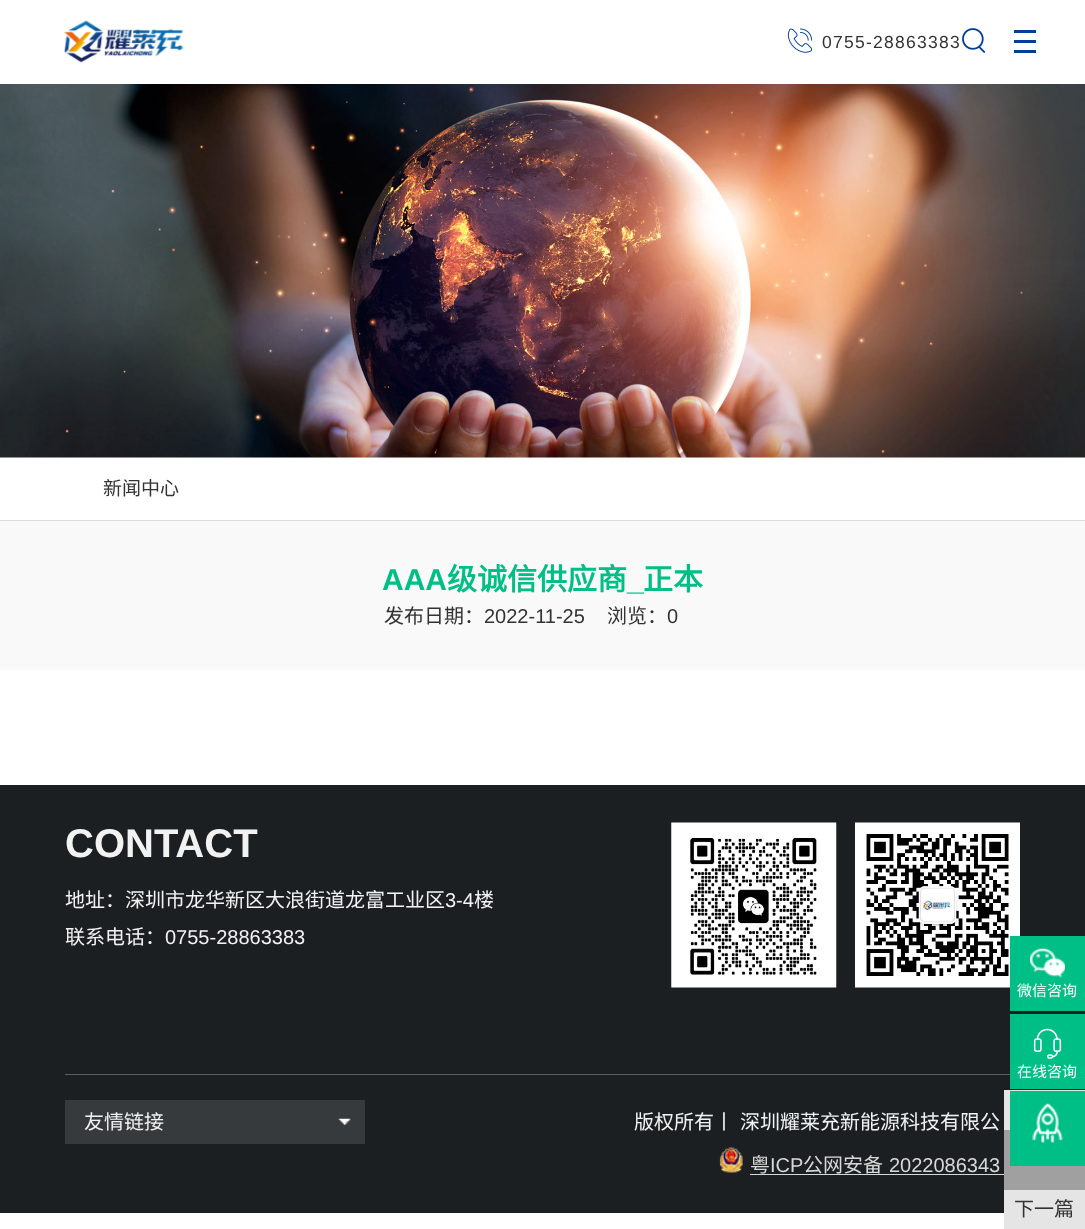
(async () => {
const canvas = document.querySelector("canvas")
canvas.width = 1085
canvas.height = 1229
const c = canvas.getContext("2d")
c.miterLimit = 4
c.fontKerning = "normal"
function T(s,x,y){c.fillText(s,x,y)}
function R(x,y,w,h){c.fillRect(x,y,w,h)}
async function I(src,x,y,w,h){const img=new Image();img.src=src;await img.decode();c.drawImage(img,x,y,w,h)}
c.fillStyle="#fff"
R(0,0,1085,1229)
await I("1.png",64,20,120,43)
await I("2.png",787,28,26,25)
c.letterSpacing="1.25px"
c.font="17.5px Liberation Sans"
c.fillStyle="#333"
T("0755-28863383",822,48)
await I("3.png",962,28,24,25)
c.fillStyle="#014099"
R(1014,30,22,3)
R(1014,40,22,3)
R(1014,50,22,3)
await I("4.png",0,84,1085,374)
c.fillStyle="#ddd"
R(0,520,1085,1)
c.letterSpacing="0px"
c.font="19px Noto Sans CJK SC"
c.fillStyle="#333"
T("新闻中心",103,495)
c.fillStyle="#f9f9f9"
R(0,521,1085,149)
c.font="bold 30px Liberation Sans"
c.fillStyle="#00bf86"
T("AAA",382,590)
c.font="bold 30px Noto Sans CJK SC"
T("级诚信供应商",447,590)
T("正本",643,590)
c.font="bold 30px Liberation Sans"
T("_",627,590)
c.font="20px Noto Sans CJK SC"
c.fillStyle="#333"
T("发布日期：",384,623)
c.font="20px Liberation Sans"
T("2022-11-25",484,623)
c.font="20px Noto Sans CJK SC"
T("浏览：",607,623)
c.font="20px Liberation Sans"
T("0",667,623)
c.fillStyle="#1b1f21"
R(0,785,1085,428)
c.fillStyle="#5c5f60"
R(65,1074,945,1)
c.font="bold 40px Liberation Sans"
c.fillStyle="#f2f2f2"
T("CONTACT",65,857)
c.font="20px Noto Sans CJK SC"
T("地址：深圳市龙华新区大浪街道龙富工业区",65,907)
c.font="20px Liberation Sans"
T("3-4",445,907)
c.font="20px Noto Sans CJK SC"
T("楼",474,907)
T("联系电话：",65,944)
c.font="20px Liberation Sans"
T("0755-28863383",165,944)
await I("5.png",671,822,166,166)
await I("6.png",855,822,165,166)
c.fillStyle="#373a3c"
R(65,1100,300,44)
await I("7.png",338,1118,14,7)
c.font="20px Noto Sans CJK SC"
c.fillStyle="#f2f2f2"
T("友情链接",84,1129)
T("版权所有丨",634,1129)
T("深圳耀莱充新能源科技有限公",740,1129)
await I("8.png",719,1147,24,26)
c.fillStyle="#d8d8d8"
T("粤",750,1172)
c.font="20px Liberation Sans"
T("ICP",770,1172)
R(750,1174,254,1)
c.font="20px Noto Sans CJK SC"
T("公网安备",803,1172)
c.font="20px Liberation Sans"
T("2022086343",889,1172)
c.fillStyle="#00bf86"
R(1010,936,75,75)
await I("9.png",1030,948,35,30)
c.font="15px Noto Sans CJK SC"
c.fillStyle="#fff"
T("微信咨询",1017,996)
c.fillStyle="#00bf86"
R(1010,1014,75,75)
await I("10.png",1033,1028,29,31)
c.fillStyle="#fff"
T("在线咨询",1017,1077)
c.fillStyle="#e5e5e5"
R(1004,1090,81,40)
c.fillStyle="#a0a0a0"
R(1004,1130,81,60)
c.fillStyle="#00bf86"
R(1010,1091,75,75)
await I("11.png",1032,1103,31,40)
c.fillStyle="#e5e5e5"
R(1004,1190,81,39)
c.font="20px Noto Sans CJK SC"
c.fillStyle="#333"
T("下一篇",1014,1216)
})()
